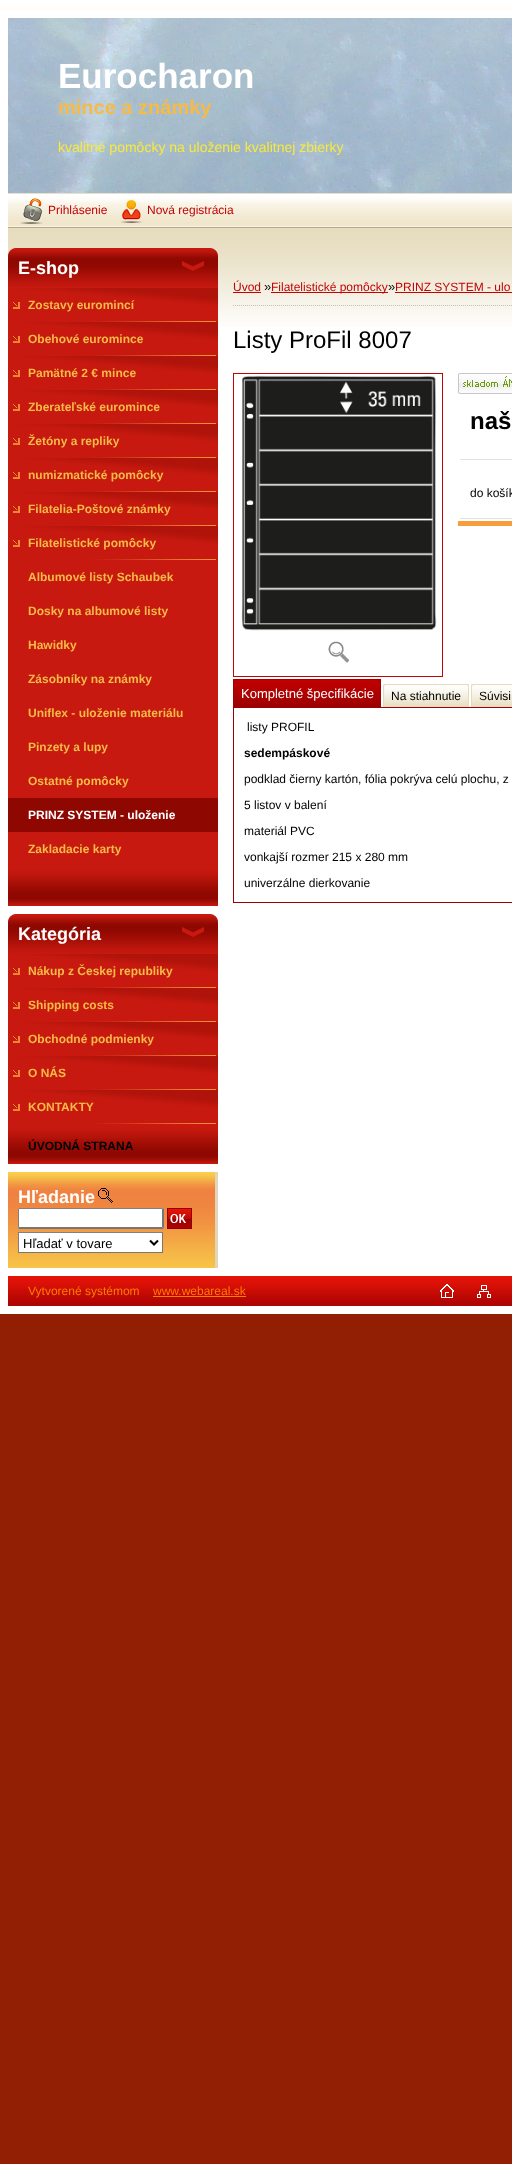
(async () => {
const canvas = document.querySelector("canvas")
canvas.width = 512
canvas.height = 2164
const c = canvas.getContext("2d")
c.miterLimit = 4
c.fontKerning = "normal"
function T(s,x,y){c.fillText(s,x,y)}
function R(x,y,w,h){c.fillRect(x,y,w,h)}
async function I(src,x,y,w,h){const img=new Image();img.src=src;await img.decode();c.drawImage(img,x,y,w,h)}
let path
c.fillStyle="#921e03"
R(0,0,512,2164)
await I("1.png",0,0,512,10)
c.fillStyle="#fff"
R(0,10,512,1304)
await I("2.png",8,18,504,175)
c.font="bold 35px Liberation Sans"
T("Eurocharon",58,88)
c.font="bold 20px Liberation Sans"
c.fillStyle="#f6ba46"
T("mince a známky",58,114)
c.font="14px Liberation Sans"
c.fillStyle="#f8e93c"
T("kvalitné pomôcky na uloženie kvalitnej zbierky",58,152)
await I("3.png",8,193,504,35)
await I("4.png",20,198,23,26)
c.font="12px Liberation Sans"
c.fillStyle="#c30405"
T("Prihlásenie",48,214)
await I("5.png",120,200,22,23)
T("Nová registrácia",147,214)
await I("6.png",8,228,504,99)
await I("7.png",8,248,210,40)
c.font="bold 18px Liberation Sans"
c.fillStyle="#fff"
T("E-shop",18,274)
await I("8.png",8,288,210,34)
c.font="bold 12px Liberation Sans"
c.fillStyle="#f6ba46"
T("Zostavy euromincí",28,309)
await I("8.png",8,322,210,34)
T("Obehové euromince",28,343)
await I("8.png",8,356,210,34)
T("Pamätné 2 € mince",28,377)
await I("8.png",8,390,210,34)
T("Zberateľské euromince",28,411)
await I("8.png",8,424,210,34)
T("Žetóny a repliky",28,445)
await I("8.png",8,458,210,34)
T("numizmatické pomôcky",28,479)
await I("8.png",8,492,210,34)
T("Filatelia-Poštové známky",28,513)
await I("8.png",8,526,210,34)
T("Filatelistické pomôcky",28,547)
c.fillStyle="#c7190f"
R(8,560,210,238)
c.fillStyle="#f6ba46"
T("Albumové listy Schaubek",28,581)
T("Dosky na albumové listy",28,615)
T("Hawidky",28,649)
T("Zásobníky na známky",28,683)
T("Uniflex - uloženie materiálu",28,717)
T("Pinzety a lupy",28,751)
T("Ostatné pomôcky",28,785)
c.fillStyle="#8e0801"
R(8,798,210,34)
c.fillStyle="#fff"
T("PRINZ SYSTEM - uloženie",28,819)
c.fillStyle="#c7190f"
R(8,832,210,34)
c.fillStyle="#f6ba46"
T("Zakladacie karty",28,853)
await I("9.png",8,866,210,40)
await I("10.png",8,914,210,40)
c.font="bold 18px Liberation Sans"
c.fillStyle="#fff"
T("Kategória",18,940)
await I("8.png",8,954,210,34)
c.font="bold 12px Liberation Sans"
c.fillStyle="#f6ba46"
T("Nákup z Českej republiky",28,975)
await I("8.png",8,988,210,34)
T("Shipping costs",28,1009)
await I("8.png",8,1022,210,34)
T("Obchodné podmienky",28,1043)
await I("8.png",8,1056,210,34)
T("O NÁS",28,1077)
await I("8.png",8,1090,210,34)
T("KONTAKTY",28,1111)
await I("9.png",8,1124,210,40)
c.fillStyle="#000"
T("ÚVODNÁ STRANA",28,1150)
await I("11.png",8,1172,210,96)
c.font="bold 18px Liberation Sans"
c.fillStyle="#fff"
T("Hľadanie",18,1203)
await I("12.png",98,1188,15,15)
R(18,1208,146,21)
c.fillStyle="#808080"
path = new Path2D("M18 1208h146l-2 1h-143z")
c.fill(path)
c.fillStyle="#767676"
path = new Path2D("M164 1208v21l-2-2v-18z")
c.fill(path)
path = new Path2D("M164 1229h-146l1-2h143z")
c.fill(path)
c.fillStyle="#808080"
path = new Path2D("M18 1229v-21l1 1v18z")
c.fill(path)
await I("13.png",167,1208,25,21)
c.fillStyle="#fff"
R(19,1233,143,19)
c.fillStyle="#808080"
R(18,1232,145,1)
c.fillStyle="#767676"
R(162,1232,1,21)
R(18,1252,145,1)
c.fillStyle="#808080"
R(18,1232,1,21)
path = new Path2D("M150 1240.5l4 4l4-4")
c.strokeStyle="#000"
c.lineWidth=2
c.stroke(path)
c.font="13px Liberation Sans"
c.fillStyle="#000"
T("Hľadať v tovare",23,1248)
path = new Path2D("M233 305.5h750")
c.strokeStyle="#c0c0c0"
c.lineWidth=1
c.setLineDash([1,1])
c.stroke(path)
c.font="12px Liberation Sans"
c.fillStyle="#c30405"
T("Úvod",233,291)
R(233,292,28,1)
c.font="13px Liberation Sans"
c.fillStyle="#000"
T("»",264,291)
c.fillStyle="#c30405"
R(271,292,117,1)
c.font="12px Liberation Sans"
T("Filatelistické pomôcky",271,291)
c.font="13px Liberation Sans"
c.fillStyle="#000"
T("»",388,291)
c.font="12px Liberation Sans"
c.fillStyle="#c30405"
T("PRINZ SYSTEM - ulo",395,291)
R(395,292,117,1)
c.font="24px Liberation Sans"
c.fillStyle="#000"
T("Listy ProFil 8007",233,348)
c.strokeStyle="#c30405"
c.setLineDash([])
c.strokeRect(233.5,373.5,209,303)
await I("14.png",241,375,196,256)
await I("15.png",328,641,21,22)
await I("16.png",458,373,54,21)
c.fillStyle="#f89d3c"
R(458,521,54,5)
c.fillStyle="#e2e2e2"
R(460,459,52,1)
c.font="bold 24px Liberation Sans"
c.fillStyle="#000"
T("naš",470,429)
c.fillStyle="#e2e2e2"
R(460,518,52,1)
c.font="12px Liberation Sans"
c.fillStyle="#000"
T("do košík",470,497)
c.fillStyle="#9c0103"
R(233,679,148,28)
await I("17.png",234,680,139,24)
await I("18.png",373,680,7,24)
c.font="13px Liberation Sans"
c.fillStyle="#fff"
T("Kompletné špecifikácie",241,698)
c.fillStyle="#e7e7e7"
R(383,684,4,3)
await I("19.png",383,684,86,23)
await I("20.png",466,685,3,22)
c.font="12px Liberation Sans"
c.fillStyle="#000"
T("Na stiahnutie",391,700)
c.fillStyle="#e7e7e7"
R(471,684,3,3)
await I("21.png",471,684,41,23)
c.fillStyle="#000"
T("Súvisi",479,700)
c.strokeStyle="#9c0103"
c.strokeRect(233.5,707.5,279,195)
T("listy PROFIL",247,731)
c.font="bold 12px Liberation Sans"
T("sedempáskové",244,757)
c.font="12px Liberation Sans"
T("podklad čierny kartón, fólia pokrýva celú plochu, z",244,783)
T("5 listov v balení",244,809)
T("materiál PVC",244,835)
T("vonkajší rozmer 215 x 280 mm",244,861)
T("univerzálne dierkovanie",244,887)
await I("22.png",8,1276,504,30)
c.fillStyle="#ff7c00"
T("Vytvorené systémom",28,1295)
T("www.webareal.sk",153,1295)
R(153,1296,93,1)
await I("23.png",440,1284,14,14)
await I("24.png",477,1285,14,13)
})()
